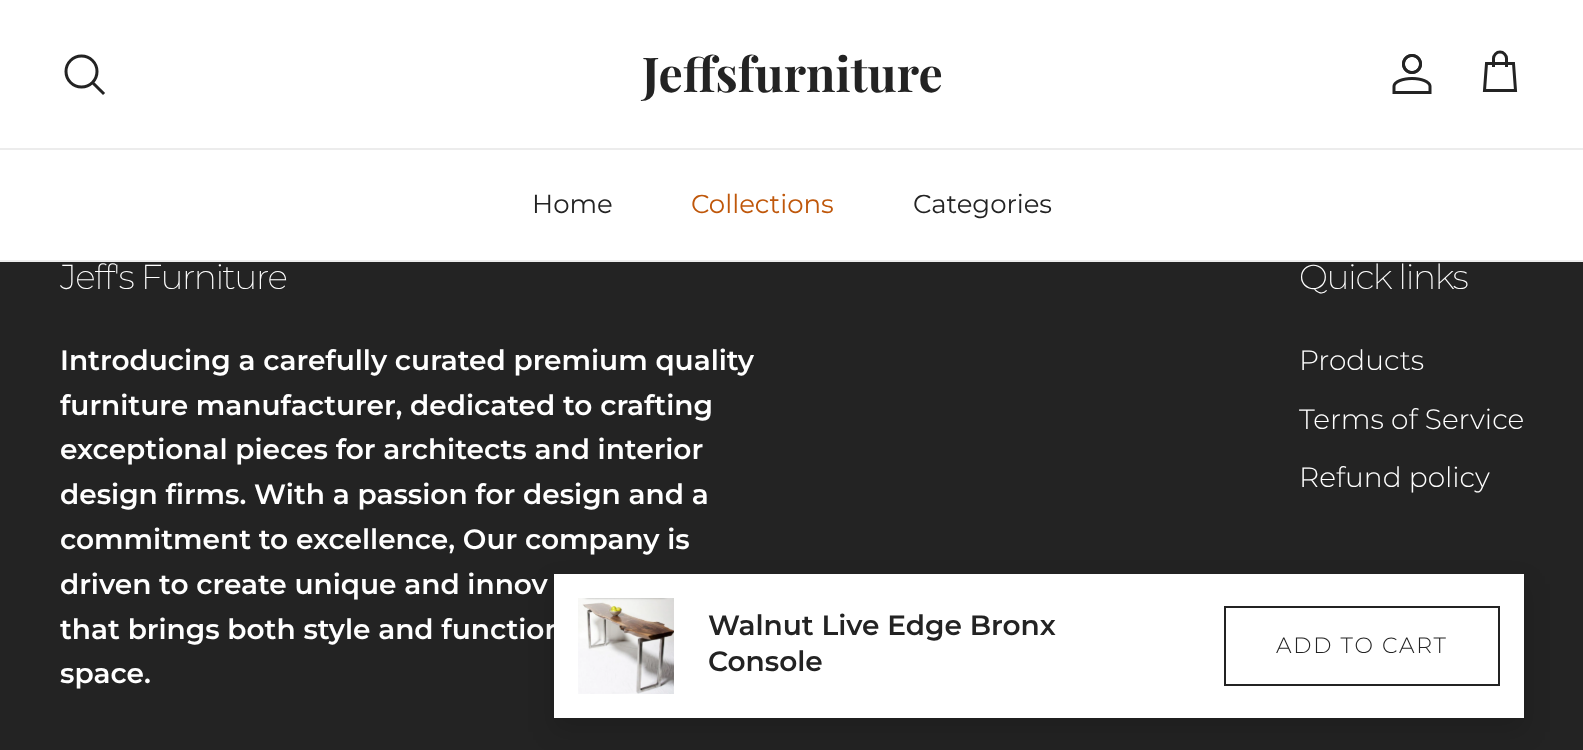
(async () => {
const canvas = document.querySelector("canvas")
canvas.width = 1583
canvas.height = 750
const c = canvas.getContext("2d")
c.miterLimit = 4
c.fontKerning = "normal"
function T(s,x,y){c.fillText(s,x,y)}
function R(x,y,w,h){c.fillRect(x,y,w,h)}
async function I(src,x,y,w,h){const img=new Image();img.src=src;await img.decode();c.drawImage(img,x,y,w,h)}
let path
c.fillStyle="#232323"
R(0,0,1583,750)
c.fillStyle="#fff"
R(0,0,1583,148)
c.fillStyle="#ececec"
R(0,148,1583,2)
c.beginPath()
c.arc(81.5,71.5,15.5,0,7)
c.strokeStyle="#232323"
c.lineWidth=3
c.stroke()
path = new Path2D("M94 84l9 9")
c.lineCap="square"
c.stroke(path)
c.font="bold 48px Playfair Display"
c.fillStyle="#232323"
T("Jeffsfurniture",642,92)
await I("1.png",1392,54,40,40)
path = new Path2D("M1506.5 67v-8.5c0-3.5-3-6.5-6.5-6.5c-3.5 0-6.5 3-6.5 6.5v8.5m-7-3.5h27l2 27h-31z")
c.lineCap="butt"
c.stroke(path)
c.fillStyle="#ececec"
R(0,260,1583,2)
c.fillStyle="#fff"
R(0,150,1583,110)
c.font="26px Montserrat"
c.fillStyle="#232323"
T("Home",532,213)
c.fillStyle="#bf570a"
T("Collections",691,213)
c.fillStyle="#232323"
T("Categories",913,213)
c.letterSpacing="-1.4px"
c.font="200 34.5px Montserrat"
c.fillStyle="#fff"
T("Jeff's Furniture",60,289)
c.letterSpacing="0px"
c.font="600 28px Montserrat"
T("Introducing a carefully curated premium quality",60,370)
T("furniture manufacturer, dedicated to crafting",60,415)
T("exceptional pieces for architects and interior",60,459)
T("design firms. With a passion for design and a",60,504)
T("commitment to excellence, Our company is",60,549)
T("driven to create unique and innov",60,594)
T("that brings both style and function",60,639)
T("space.",60,683)
c.letterSpacing="-1.4px"
c.font="200 34.5px Montserrat"
T("Quick links",1299,289)
c.letterSpacing="0px"
c.font="300 28px Montserrat"
T("Products",1299,370)
T("Terms of Service",1299,429)
T("Refund policy",1299,487)
c.fillStyle="#0000001f"
c.filter="blur(12px)"
c.beginPath()
c.rect(552,584,974,148)
c.fill()
c.filter="none"
c.fillStyle="#fff"
R(554,574,970,144)
await I("2.png",578,598,96,96)
c.font="600 28px Montserrat"
c.fillStyle="#232323"
T("Walnut Live Edge Bronx",708,635)
T("Console",708,671)
c.lineWidth=2
c.strokeRect(1225,607,274,78)
c.letterSpacing="1.75px"
c.font="300 22px Montserrat"
T("ADD TO CART",1276,653)
c.fillStyle="#fff"
path = new Path2D("M1351 644.5l10 10l-2 2l-10-10z")
c.fill(path)
})()
